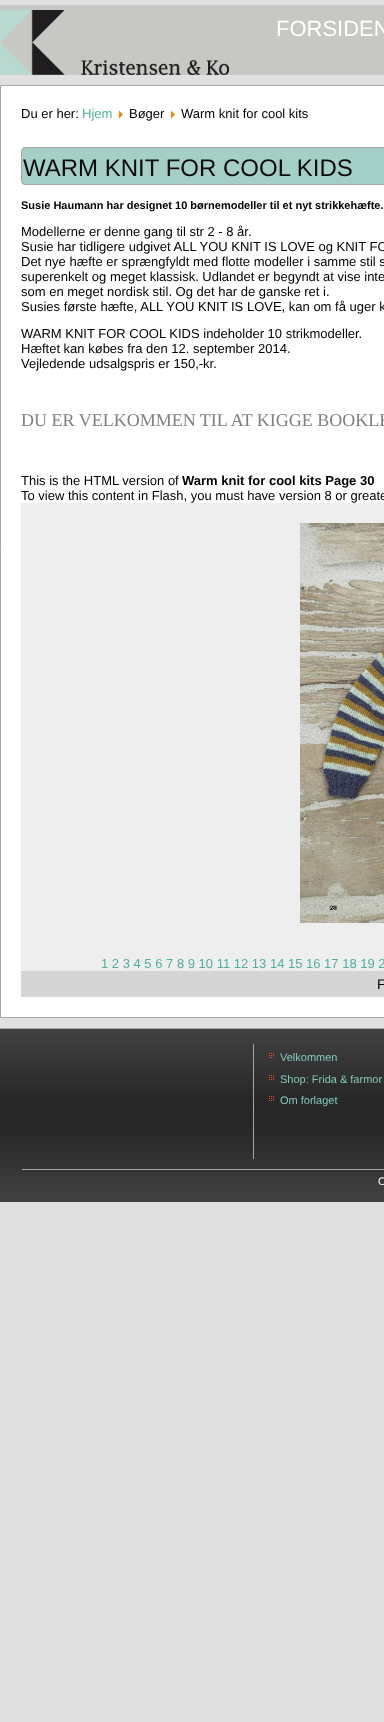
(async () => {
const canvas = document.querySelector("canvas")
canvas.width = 384
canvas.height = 1722
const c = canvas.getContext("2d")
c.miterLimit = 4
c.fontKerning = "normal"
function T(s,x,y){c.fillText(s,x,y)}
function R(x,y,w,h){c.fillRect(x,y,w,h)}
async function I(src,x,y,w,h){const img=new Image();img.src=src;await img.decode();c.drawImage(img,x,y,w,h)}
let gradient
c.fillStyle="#e0e0e0"
R(0,0,384,1722)
c.fillStyle="#c7c8c3"
R(0,5,384,70)
await I("1.png",0,10,229,65)
c.font="22px Liberation Sans"
c.fillStyle="#fff"
T("FORSIDEN",276,36)
c.beginPath()
c.rect(.5,85.5,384,932)
c.fill()
c.strokeStyle="#a6a6a6"
c.stroke()
c.font="13px Liberation Sans"
c.fillStyle="#000"
T("Du er her:",21,118)
c.fillStyle="#4fb09f"
T("Hjem",82,118)
await I("2.png",119,111,4,7)
c.fillStyle="#000"
T("Bøger",129,118)
await I("2.png",171,111,4,7)
T("Warm knit for cool kits",181,118)
c.fillStyle="#a3cfc7"
c.beginPath()
c.roundRect(21.5,147.5,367,37,3.5)
c.fill()
c.stroke()
c.font="24px Liberation Sans"
c.fillStyle="#0a0a0a"
T("WARM KNIT FOR COOL KIDS",23,176)
c.font="bold 11px Liberation Sans"
c.fillStyle="#000"
T("Susie Haumann har designet 10 børnemodeller til et nyt strikkehæfte.",21,209)
c.font="13px Liberation Sans"
T("Modellerne er denne gang til str 2 - 8 år.",21,236)
T("Susie har tidligere udgivet ALL YOU KNIT IS LOVE og KNIT FO",21,251)
T("Det nye hæfte er sprængfyldt med flotte modeller i samme stil s",21,266)
T("superenkelt og meget klassisk. Udlandet er begyndt at vise inte",21,281)
T("som en meget nordisk stil. Og det har de ganske ret i.",21,296)
T("Susies første hæfte, ALL YOU KNIT IS LOVE, kan om få uger k",21,311)
T("WARM KNIT FOR COOL KIDS indeholder 10 strikmodeller.",21,338)
T("Hæftet kan købes fra den 12. september 2014.",21,353)
T("Vejledende udsalgspris er 150,-kr.",21,368)
c.font="18px Liberation Serif"
c.fillStyle="#808080"
T("DU ER VELKOMMEN TIL AT KIGGE BOOKLE",21,426)
c.font="13px Liberation Sans"
c.fillStyle="#000"
T("This is the HTML version of",21,485)
c.font="bold 13px Liberation Sans"
T("Warm knit for cool kits Page 30",182,485)
c.font="13px Liberation Sans"
T("To view this content in Flash, you must have version 8 or greate",21,500)
c.fillStyle="#eee"
R(21,503,363,468)
await I("3.png",300,523,84,400)
c.fillStyle="#4fb09f"
T("1 2 3 4 5 6 7 8 9 10 11 12 13 14 15 16 17 18 19 2",101,968)
c.fillStyle="#d5d5d5"
R(21,971,363,26)
c.font="14px Liberation Sans"
c.fillStyle="#000"
T("F",377,989)
gradient = c.createLinearGradient(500,1028,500,1202)
gradient.addColorStop(0,"#424242")
gradient.addColorStop(.4,"#282828")
gradient.addColorStop(.5,"#272727")
gradient.addColorStop(.6,"#282828")
gradient.addColorStop(1,"#424242")
c.fillStyle = gradient
R(0,1029,384,173)
c.fillStyle="#a6a6a6"
R(0,1028,384,1)
R(253,1044,1,115)
await I("4.png",269,1053,5,5)
c.font="11px Liberation Sans"
c.fillStyle="#83c8bb"
T("Velkommen",280,1061)
await I("5.png",269,1075,5,5)
T("Shop: Frida & farmor",280,1083)
await I("6.png",269,1096,5,5)
T("Om forlaget",280,1104)
c.fillStyle="#a6a6a6"
R(22,1169,362,1)
c.fillStyle="#fff"
T("C",378,1185)
})()
